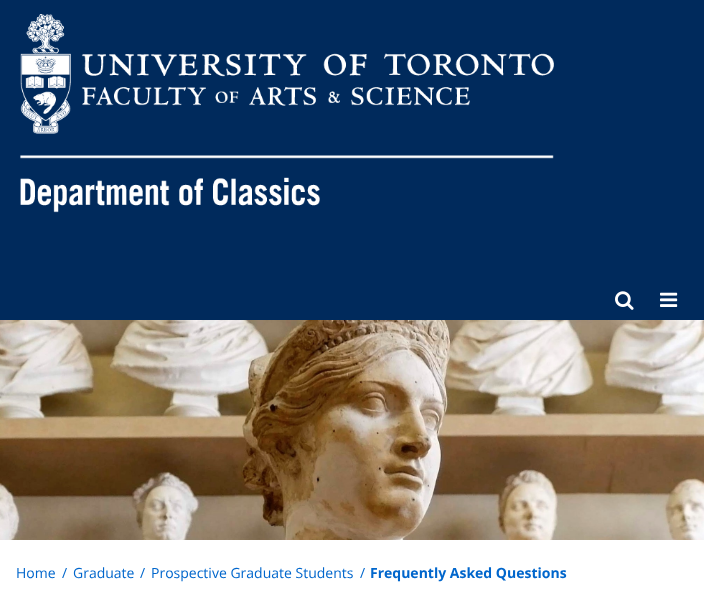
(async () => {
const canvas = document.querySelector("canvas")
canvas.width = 704
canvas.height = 607
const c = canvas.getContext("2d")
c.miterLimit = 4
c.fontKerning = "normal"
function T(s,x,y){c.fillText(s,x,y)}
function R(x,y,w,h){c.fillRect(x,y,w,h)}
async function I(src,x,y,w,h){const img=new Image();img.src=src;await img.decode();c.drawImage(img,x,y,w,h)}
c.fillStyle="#fff"
R(0,0,704,607)
c.fillStyle="#002a5c"
R(0,0,704,320)
await I("1.png",20,14,534,199)
await I("2.png",615,291,19,19)
await I("3.png",660,292,18,15)
await I("4.png",0,320,704,220)
c.font="14px Open Sans"
c.fillStyle="#06c"
T("Home",16,578)
T("/",62,578)
T("Graduate",73,578)
T("/",140,578)
T("Prospective Graduate Students",151,578)
T("/",360,578)
c.font="bold 14px Open Sans"
T("Frequently Asked Questions",370,578)
})()
